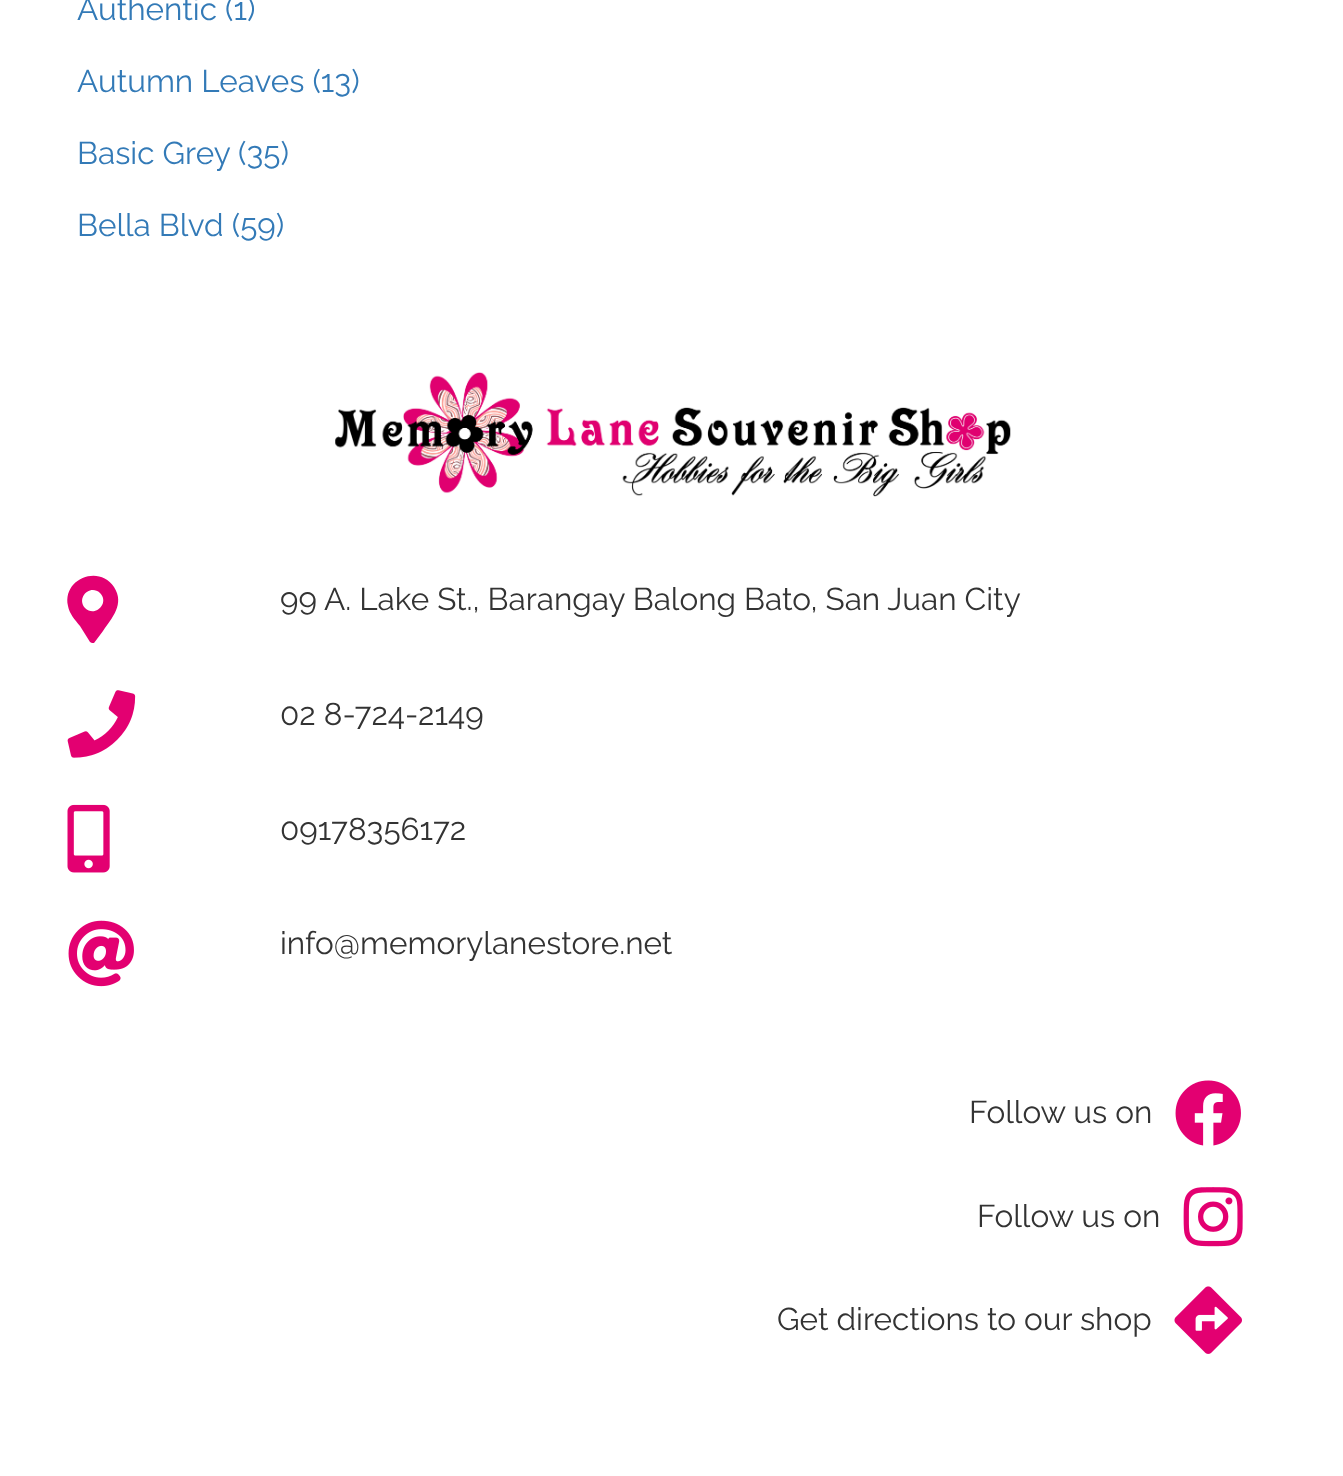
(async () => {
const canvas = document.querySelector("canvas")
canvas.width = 1343
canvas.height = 1476
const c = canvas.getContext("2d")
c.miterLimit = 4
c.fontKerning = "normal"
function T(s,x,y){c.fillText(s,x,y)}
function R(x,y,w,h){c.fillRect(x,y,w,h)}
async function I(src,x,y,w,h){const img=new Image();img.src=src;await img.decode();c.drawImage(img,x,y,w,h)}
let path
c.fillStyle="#fff"
R(0,0,1343,1476)
c.font="31.5px Raleway"
c.fillStyle="#337ab7"
T("Authentic (1)",77,20)
T("Autumn Leaves (13)",77,92)
T("Basic Grey (35)",77,164)
T("Bella Blvd (59)",77,236)
await I("1.png",335,372,676,125)
c.fillStyle="#e30071"
path = new Path2D("M90 642l-10-16c-5-6-11-13-12-20c-6-27 31-42 46-19c11 17-2 31-11 44l-9 12c-1 0-3 0-4-1zm-5-34c10 10 25-5 15-15c-10-9-24 5-15 15z")
c.fill(path)
c.fillStyle="#333"
T("99 A. Lake St., Barangay Balong Bato, San Juan City",280,610)
await I("2.png",67,690,69,68)
T("02 8-724-2149",280,725)
await I("3.png",67,804,43,69)
T("09178356172",280,840)
await I("4.png",68,920,66,67)
T("info@memorylanestore.net",280,954)
T("Follow us on",969,1123)
await I("5.png",1175,1080,66,66)
T("Follow us on",977,1227)
await I("6.png",1183,1187,60,60)
T("Get directions to our shop",777,1330)
await I("7.png",1174,1286,68,68)
})()
